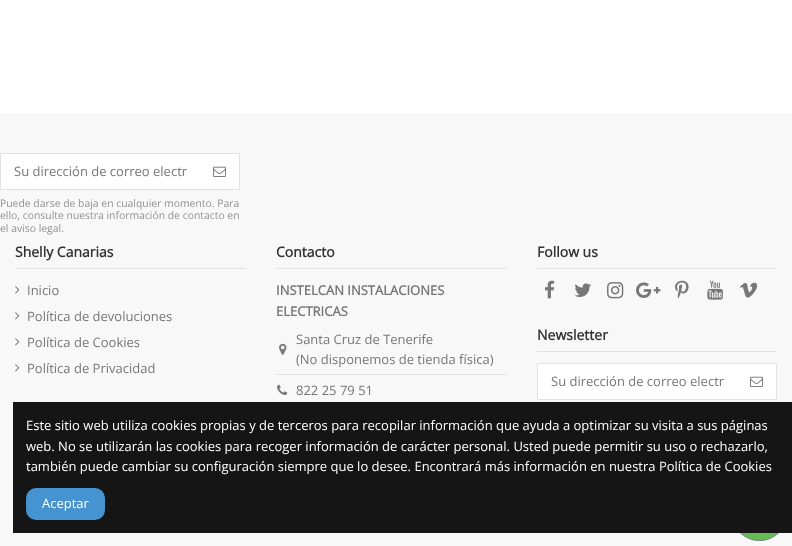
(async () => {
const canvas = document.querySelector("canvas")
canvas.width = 792
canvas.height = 546
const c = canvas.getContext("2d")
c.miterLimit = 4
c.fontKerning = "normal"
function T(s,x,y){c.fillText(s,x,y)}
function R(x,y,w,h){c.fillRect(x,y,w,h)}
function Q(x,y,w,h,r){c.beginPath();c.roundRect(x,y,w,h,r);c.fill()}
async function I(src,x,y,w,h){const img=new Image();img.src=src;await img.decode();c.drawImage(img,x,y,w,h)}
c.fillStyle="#fff"
R(0,0,792,546)
c.fillStyle="#f8f8f8"
R(0,113,792,433)
c.fillStyle="#fff"
c.beginPath()
c.rect(.5,153.5,239,36)
c.fill()
c.strokeStyle="#e3e3e3"
c.stroke()
c.font="13px Open Sans"
c.fillStyle="#777"
T("Su dirección de correo electr",14,176)
await I("1.png",213,166,13,11)
c.font="10.4px Open Sans"
c.fillStyle="#919191"
T("Puede darse de baja en cualquier momento. Para",0,207)
T("ello, consulte nuestra información de contacto en",0,219)
T("el aviso legal.",0,232)
c.fillStyle="#e3e3e3"
R(15,268,231,1)
c.font="bold 14px Open Sans"
c.fillStyle="#333"
T("Shelly Canarias",15,257)
await I("2.png",15,286,5,8)
c.font="13px Open Sans"
c.fillStyle="#777"
T("Inicio",27,295)
await I("2.png",15,312,5,8)
T("Política de devoluciones",27,321)
await I("2.png",15,338,5,8)
T("Política de Cookies",27,347)
await I("2.png",15,364,5,8)
T("Política de Privacidad",27,373)
c.fillStyle="#e3e3e3"
R(276,268,231,1)
c.font="bold 14px Open Sans"
c.fillStyle="#333"
T("Contacto",276,257)
c.font="bold 13px Open Sans"
c.fillStyle="#777"
T("INSTELCAN INSTALACIONES",276,295)
T("ELECTRICAS",276,316)
await I("3.png",279,343,8,12)
c.font="13px Open Sans"
T("Santa Cruz de Tenerife",296,344)
T("(No disponemos de tienda física)",296,364)
c.fillStyle="#e2e2e2"
R(276,374,231,1)
await I("4.png",277,384,11,11)
c.fillStyle="#777"
T("822 25 79 51",296,395)
c.fillStyle="#e3e3e3"
R(537,268,240,1)
c.font="bold 14px Open Sans"
c.fillStyle="#333"
T("Follow us",537,257)
await I("5.png",545,280,10,19)
await I("6.png",574,283,17,14)
await I("7.png",607,282,17,17)
await I("8.png",636,282,25,16)
await I("9.png",675,280,14,19)
await I("10.png",707,280,16,20)
await I("11.png",740,282,18,16)
c.fillStyle="#e3e3e3"
R(537,351,240,1)
c.fillStyle="#333"
T("Newsletter",537,340)
c.fillStyle="#fff"
c.beginPath()
c.rect(537.5,363.5,239,36)
c.fill()
c.stroke()
c.font="13px Open Sans"
c.fillStyle="#777"
T("Su dirección de correo electr",551,386)
await I("1.png",750,376,13,11)
c.fillStyle="#65bc54"
c.beginPath()
c.arc(759.5,513.5,27.5,0,7)
c.fill()
await I("12.png",740,533,39,3)
c.beginPath()
c.arc(759.5,513.5,27,0,7)
c.strokeStyle="#888"
c.stroke()
c.fillStyle="#151515"
R(13,402,779,131)
c.fillStyle="#fff"
T("Este sitio web utiliza cookies propias y de terceros para recopilar información que ayuda a optimizar su visita a sus páginas",26,430)
T("web. No se utilizarán las cookies para recoger información de carácter personal. Usted puede permitir su uso o rechazarlo,",26,451)
T("también puede cambiar su configuración siempre que lo desee. Encontrará más información en nuestra Política de Cookies",26,471)
c.fillStyle="#4594d1"
Q(26,488,79,32,10)
c.fillStyle="#fff"
T("Aceptar",42,508)
})()
